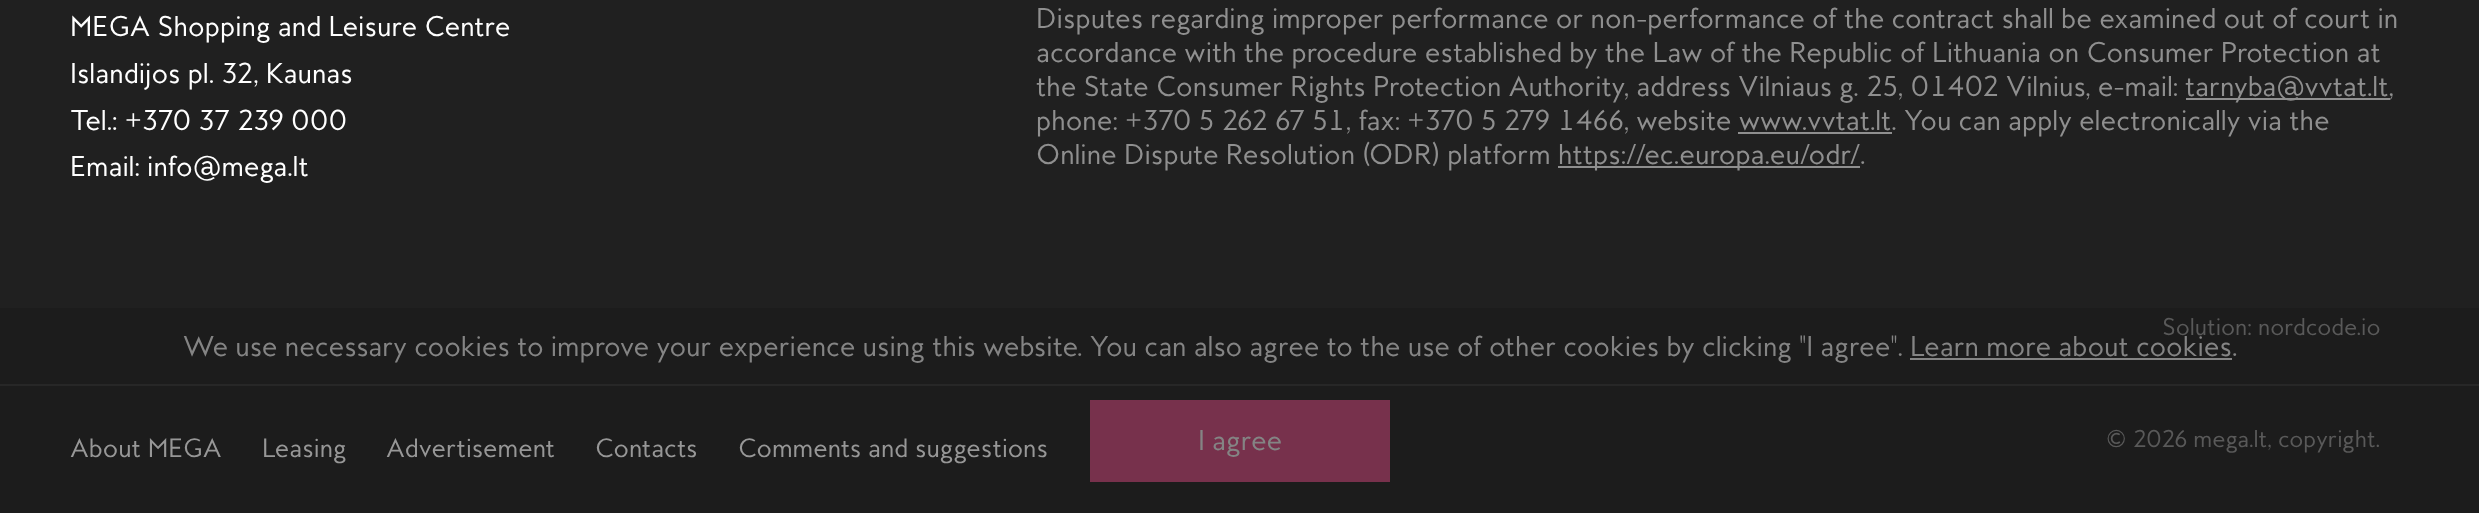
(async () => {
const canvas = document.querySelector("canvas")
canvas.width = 2479
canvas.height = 513
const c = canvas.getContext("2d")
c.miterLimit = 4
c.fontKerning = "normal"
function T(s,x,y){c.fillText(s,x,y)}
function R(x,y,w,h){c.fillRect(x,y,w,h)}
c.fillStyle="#202020"
R(0,0,2479,513)
c.fillStyle="#1c1c1c"
R(0,308,2479,205)
c.font="26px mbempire"
c.fillStyle="#fff"
T("MEGA Shopping and Leisure Centre",70,36)
T("Islandijos pl. 32, Kaunas",70,83)
T("Tel.: +370 37 239 000",70,130)
T("Email: info@mega.lt",70,176)
c.fillStyle="#8f8f8f"
T("Disputes regarding improper performance or non-performance of the contract shall be examined out of court in",1036,28)
T("accordance with the procedure established by the Law of the Republic of Lithuania on Consumer Protection at",1036,62)
T("the State Consumer Rights Protection Authority, address Vilniaus g. 25, 01402 Vilnius, e-mail:",1036,96)
R(2186,98,204,2)
T("tarnyba@vvtat.lt,",2185,96)
T("phone: +370 5 262 67 51, fax: +370 5 279 1466, website www.vvtat.lt. You can apply electronically via the",1036,130)
R(1738,132,154,2)
T("Online Dispute Resolution (ODR) platform",1036,164)
R(1558,166,302,2)
T("https://ec.europa.eu/odr/.",1558,164)
c.font="22px mbempire"
c.fillStyle="#595959"
T("Solution: nordcode.io",2162,335)
c.fillStyle="#272727"
R(0,384,2479,2)
c.font="24px mbempire"
c.fillStyle="#979797"
T("About MEGA",70,457)
T("Leasing",262,457)
T("Advertisement",386,457)
T("Contacts",595,457)
T("Comments and suggestions",738,457)
c.font="22px mbempire"
c.fillStyle="#595959"
T("© 2026 mega.lt, copyright.",2106,447)
c.font="26px mbempire"
c.fillStyle="#848484"
T("We use necessary cookies to improve your experience using this website. You can also agree to the use of other cookies by clicking \"I agree\". Learn more about cookies.",183,356)
R(1910,358,322,2)
c.fillStyle="#77314c"
R(1090,400,300,82)
c.fillStyle="#848484"
T("I agree",1198,450)
})()
